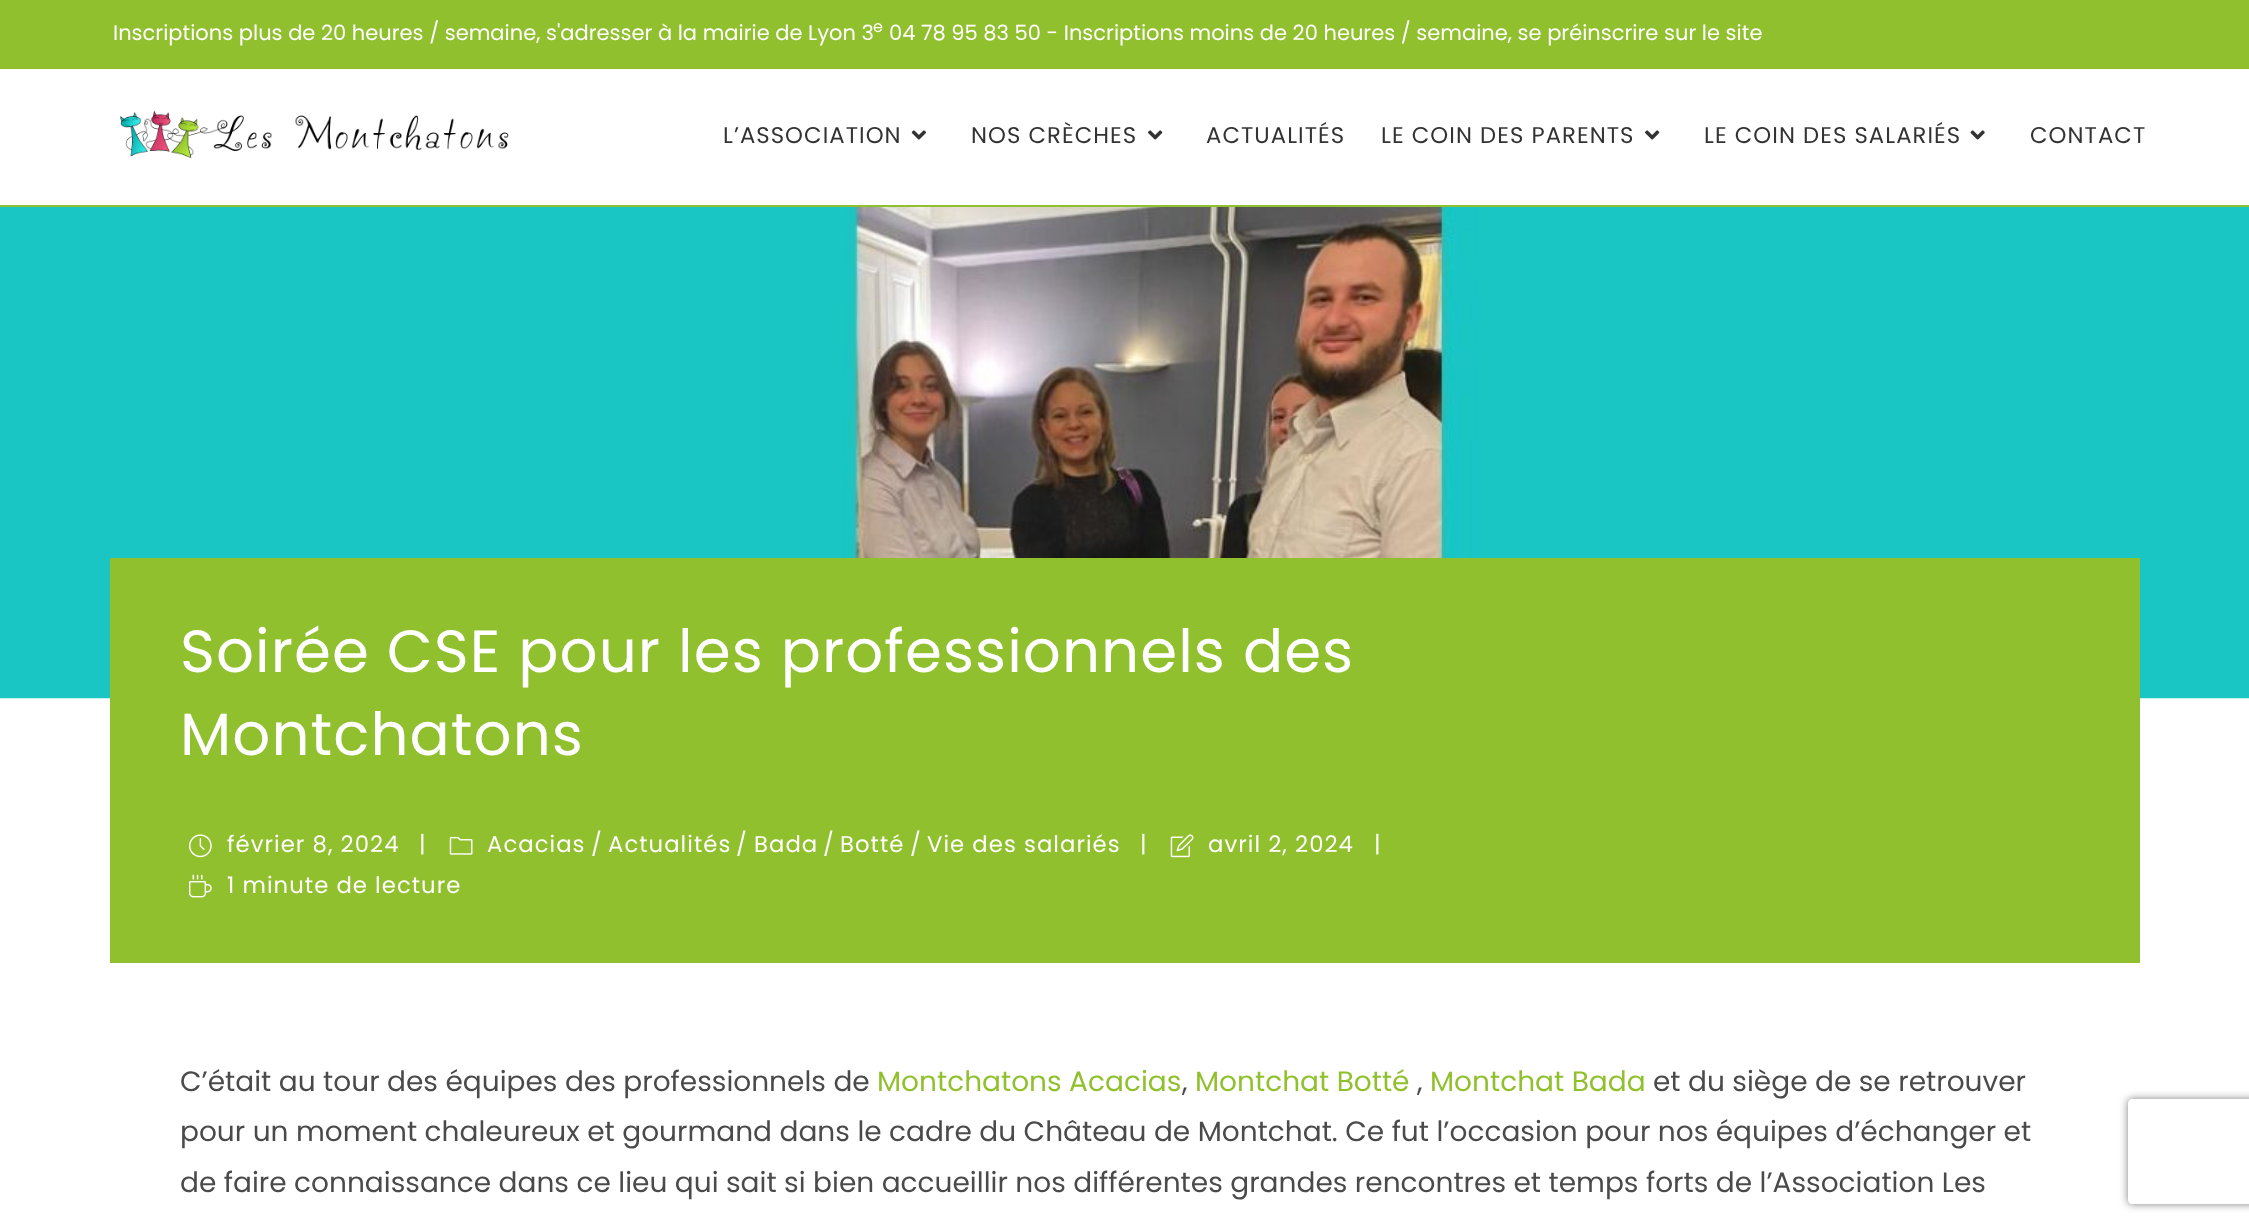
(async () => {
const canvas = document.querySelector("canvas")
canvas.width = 2249
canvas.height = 1227
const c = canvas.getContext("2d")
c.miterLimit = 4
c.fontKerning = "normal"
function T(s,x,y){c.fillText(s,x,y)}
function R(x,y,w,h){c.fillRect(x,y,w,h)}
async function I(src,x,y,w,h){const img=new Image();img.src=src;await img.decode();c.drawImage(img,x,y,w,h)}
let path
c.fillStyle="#fff"
R(0,0,2249,1227)
c.fillStyle="#91c02f"
R(0,0,2249,69)
c.font="21px Poppins"
c.fillStyle="#fff"
T("Inscriptions plus de 20 heures / semaine, s'adresser à la mairie de Lyon 3",113,40)
c.font="16px Poppins"
T("e",873,32)
c.font="21px Poppins"
T("04 78 95 83 50 - Inscriptions moins de 20 heures / semaine, se préinscrire sur le site",889,40)
c.fillStyle="#91c02f"
R(0,205,2249,2)
await I("1.png",120,110,389,48)
c.letterSpacing="1.05px"
c.font="22.75px Poppins"
c.fillStyle="#333334"
T("L’ASSOCIATION",723,143)
await I("2.png",911,130,15,10)
T("NOS CRÈCHES",971,143)
await I("3.png",1148,130,15,10)
T("ACTUALITÉS",1206,143)
T("LE COIN DES PARENTS",1381,143)
await I("3.png",1645,130,15,10)
T("LE COIN DES SALARIÉS",1704,143)
await I("4.png",1970,130,15,10)
T("CONTACT",2030,143)
await I("5.png",0,207,2249,492)
c.fillStyle="#91c02f"
R(110,558,2030,405)
c.font="59.5px Poppins"
c.fillStyle="#fff"
T("Soirée CSE pour les professionnels des",180,672)
T("Montchatons",180,755)
await I("6.png",189,834,23,24)
c.font="22.75px Poppins"
T("février 8, 2024",227,852)
T("|",419,852)
await I("7.png",449,836,24,19)
T("Acacias",487,852)
T("/",591,852)
T("Actualités",608,852)
T("/",736,852)
T("Bada",754,852)
T("/",823,852)
T("Botté",840,852)
T("/",910,852)
T("Vie des salariés",927,852)
T("|",1140,852)
await I("8.png",1170,834,24,24)
T("avril 2, 2024",1208,852)
T("|",1374,852)
await I("9.png",189,874,23,24)
T("1 minute de lecture",227,893)
c.letterSpacing="0px"
c.font="28px Poppins"
c.fillStyle="#4a4a4a"
T("C’était au tour des équipes des professionnels de",180,1091)
c.fillStyle="#91c02f"
T("Montchatons Acacias",877,1091)
c.fillStyle="#4a4a4a"
T(",",1182,1091)
c.fillStyle="#91c02f"
T("Montchat Botté",1195,1091)
c.fillStyle="#4a4a4a"
T(",",1417,1091)
c.fillStyle="#91c02f"
T("Montchat Bada",1430,1091)
c.fillStyle="#4a4a4a"
T("et du siège de se retrouver",1653,1091)
T("pour un moment chaleureux et gourmand dans le cadre du Château de Montchat. Ce fut l’occasion pour nos équipes d’échanger et",180,1141)
T("de faire connaissance dans ce lieu qui sait si bien accueillir nos différentes grandes rencontres et temps forts de l’Association Les",180,1192)
c.save()
path = new Path2D("M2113 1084h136v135h-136zm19 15h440c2 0 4 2 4 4v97c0 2-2 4-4 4h-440c-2 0-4-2-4-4v-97c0-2 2-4 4-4z")
c.clip(path,"evenodd")
c.fillStyle="#808080"
c.filter="blur(4.5px)"
c.beginPath()
c.roundRect(2128,1099,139,105,4)
c.fill()
c.filter="none"
c.restore()
})()
